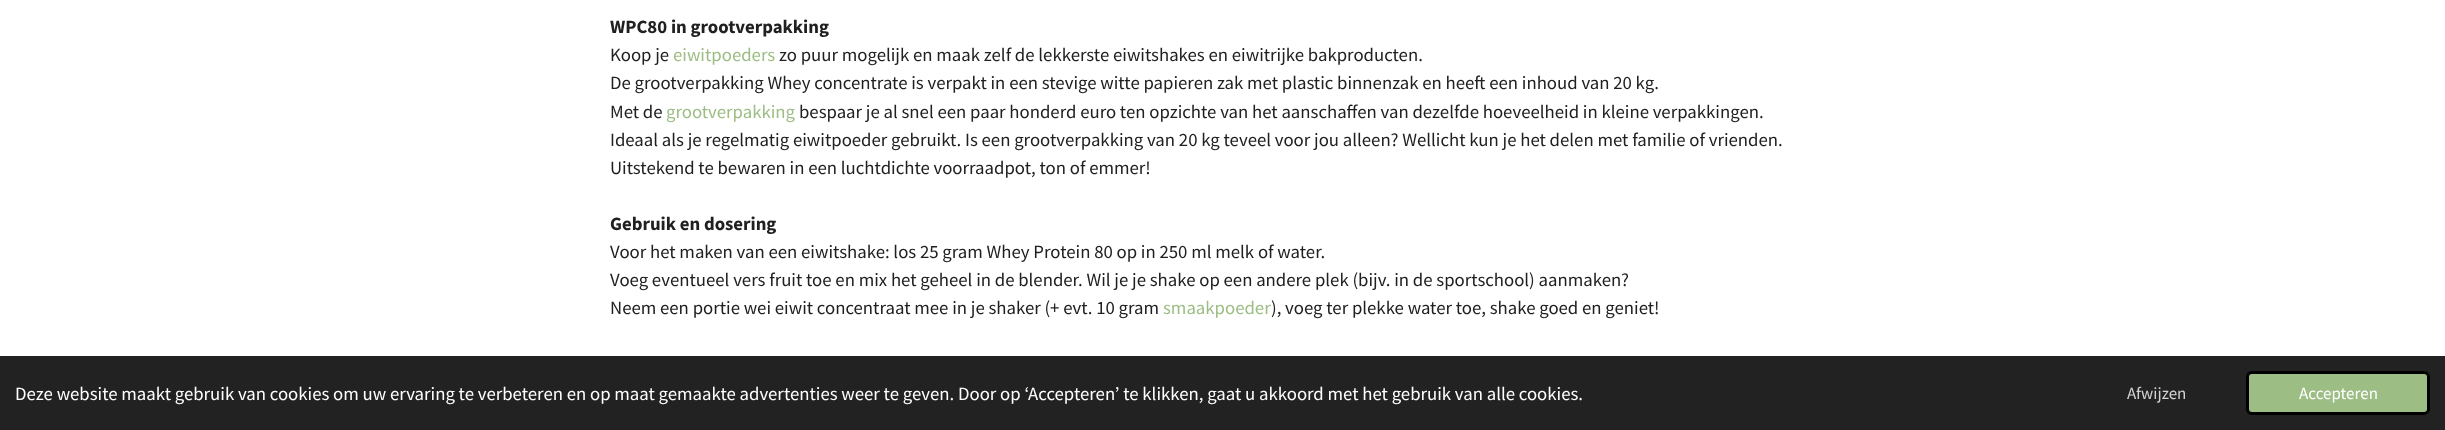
(async () => {
const canvas = document.querySelector("canvas")
canvas.width = 2445
canvas.height = 430
const c = canvas.getContext("2d")
c.miterLimit = 4
c.fontKerning = "normal"
function T(s,x,y){c.fillText(s,x,y)}
function R(x,y,w,h){c.fillRect(x,y,w,h)}
c.fillStyle="#fff"
R(0,0,2445,430)
c.font="bold 18.75px Source Sans Pro"
c.fillStyle="#202020"
T("WPC80 in grootverpakking",610,33)
c.font="18.75px Source Sans Pro"
T("Koop je",610,61)
c.fillStyle="#9cbd84"
T("eiwitpoeders",673,61)
c.fillStyle="#202020"
T("zo puur mogelijk en maak zelf de lekkerste eiwitshakes en eiwitrijke bakproducten.",779,61)
T("De grootverpakking Whey concentrate is verpakt in een stevige witte papieren zak met plastic binnenzak en heeft een inhoud van 20 kg.",610,89)
T("Met de",610,118)
c.fillStyle="#9cbd84"
T("grootverpakking",666,118)
c.fillStyle="#202020"
T("bespaar je al snel een paar honderd euro ten opzichte van het aanschaffen van dezelfde hoeveelheid in kleine verpakkingen.",799,118)
T("Ideaal als je regelmatig eiwitpoeder gebruikt. Is een grootverpakking van 20 kg teveel voor jou alleen? Wellicht kun je het delen met familie of vrienden.",610,146)
T("Uitstekend te bewaren in een luchtdichte voorraadpot, ton of emmer!",610,174)
c.font="bold 18.75px Source Sans Pro"
T("Gebruik en dosering",610,230)
c.font="18.75px Source Sans Pro"
T("Voor het maken van een eiwitshake: los 25 gram Whey Protein 80 op in 250 ml melk of water.",610,258)
T("Voeg eventueel vers fruit toe en mix het geheel in de blender. Wil je je shake op een andere plek (bijv. in de sportschool) aanmaken?",610,286)
T("Neem een portie wei eiwit concentraat mee in je shaker (+ evt. 10 gram",610,314)
c.fillStyle="#9cbd84"
T("smaakpoeder",1163,314)
c.fillStyle="#202020"
T("), voeg ter plekke water toe, shake goed en geniet!",1271,314)
c.fillStyle="#222"
R(0,356,2445,74)
c.fillStyle="#fff"
T("Deze website maakt gebruik van cookies om uw ervaring te verbeteren en op maat gemaakte advertenties weer te geven. Door op ‘Accepteren’ te klikken, gaat u akkoord met het gebruik van alle cookies.",15,400)
c.font="17px Source Sans Pro"
c.fillStyle="#d3d3d3"
T("Afwijzen",2127,399)
c.fillStyle="#9cbd84"
c.beginPath()
c.roundRect(2247.5,372.5,181,41,4.5)
c.fill()
c.strokeStyle="#000"
c.lineWidth=3
c.stroke()
c.fillStyle="#fff"
T("Accepteren",2299,399)
})()
